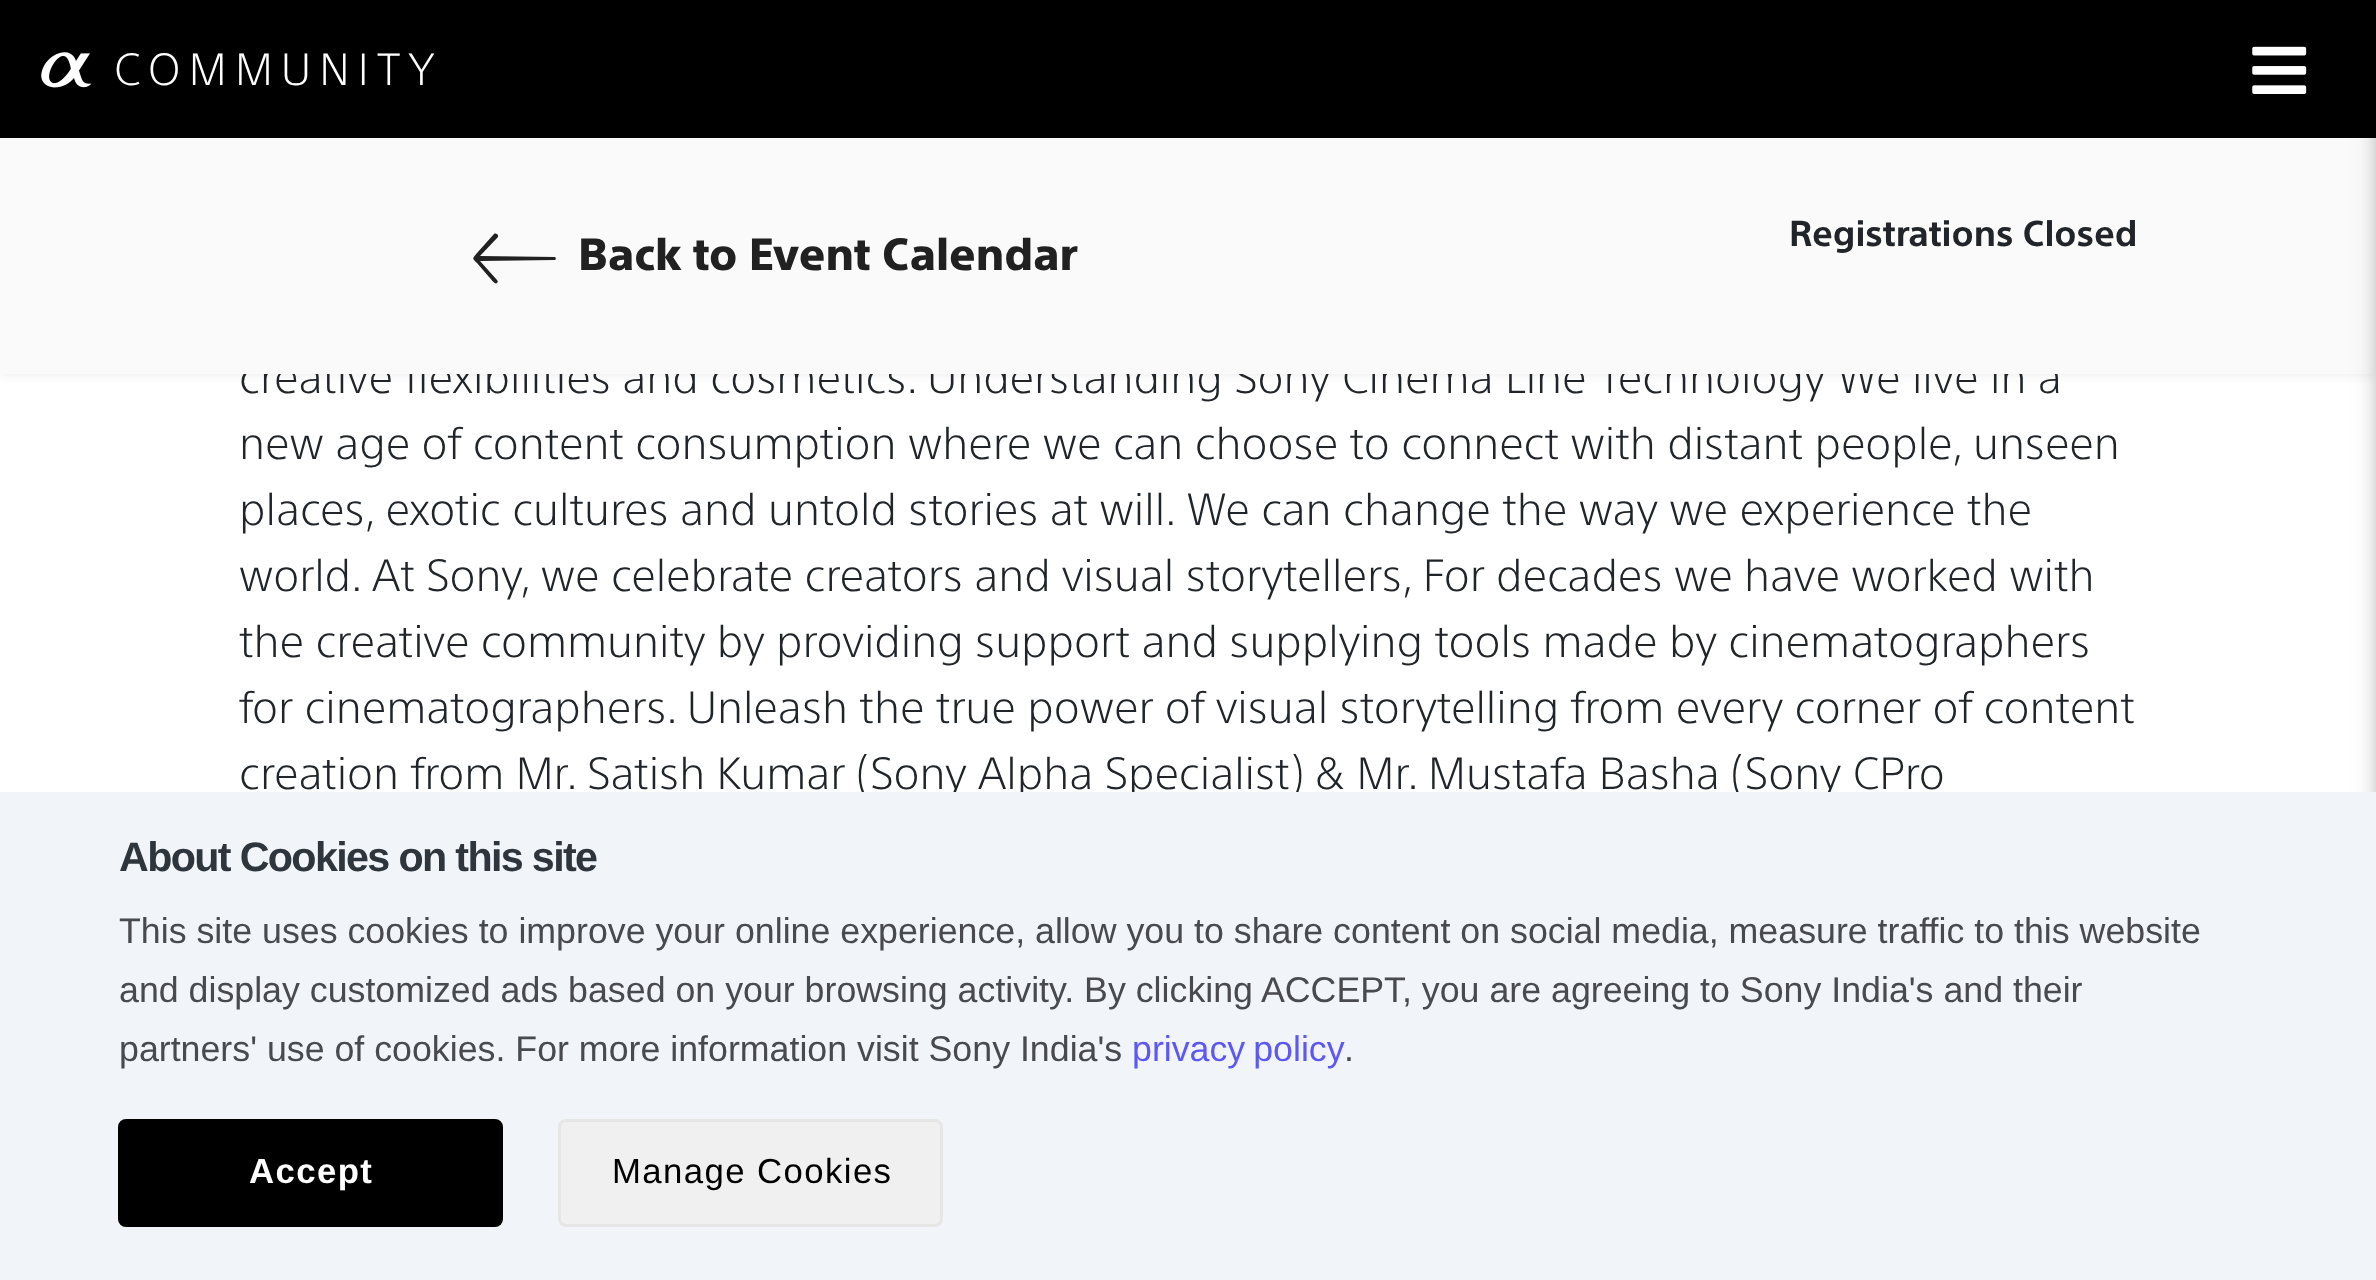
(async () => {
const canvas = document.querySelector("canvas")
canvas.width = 2376
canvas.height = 1280
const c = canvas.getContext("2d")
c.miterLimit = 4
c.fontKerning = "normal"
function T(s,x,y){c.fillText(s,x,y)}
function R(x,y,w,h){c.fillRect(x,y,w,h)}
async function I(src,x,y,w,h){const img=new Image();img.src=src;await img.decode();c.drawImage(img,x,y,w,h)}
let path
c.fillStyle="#fff"
R(0,0,2376,1280)
c.fillStyle="#1919191a"
c.filter="blur(5.5px)"
c.beginPath()
c.rect(0,110,2376,264)
c.fill()
c.filter="none"
c.fillStyle="#000"
R(0,0,2376,138)
await I("1.png",41,52,51,36)
c.letterSpacing="8.25px"
c.font="300 44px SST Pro"
c.fillStyle="#fff"
T("COMMUNITY",114,85)
await I("2.png",2252,46,55,48)
c.letterSpacing="0px"
c.fillStyle="#212529"
T("creative flexibilities and cosmetics. Understanding Sony Cinema Line Technology We live in a",239,393)
c.fillStyle="#fafafa"
R(0,138,2376,236)
c.fillStyle="#0000001f"
c.filter="blur(14px)"
c.beginPath()
c.rect(2376,6,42,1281)
c.fill()
c.filter="none"
c.fillStyle="#00000029"
c.filter="blur(7px)"
c.beginPath()
c.rect(2376,6,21,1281)
c.fill()
c.filter="none"
c.fillStyle="#212121"
path = new Path2D("M497 283c-2 2-5-3-8-6l-12-14c-5-5-5-4 0-10l17-19c1-1 3 0 4 1v2l-18 19l75 1c1 0 1 3 0 3l-75 1l17 19c1 1 1 2 0 3z")
c.fill(path)
c.font="900 44px SST Pro"
T("Back to Event Calendar",578,270)
c.font="bold 35.25px SST Pro"
c.fillStyle="#212529"
T("Registrations Closed",1789,246)
c.font="300 44px SST Pro"
T("new age of content consumption where we can choose to connect with distant people, unseen",239,459)
T("places, exotic cultures and untold stories at will. We can change the way we experience the",239,525)
T("world. At Sony, we celebrate creators and visual storytellers, For decades we have worked with",239,591)
T("the creative community by providing support and supplying tools made by cinematographers",239,657)
T("for cinematographers. Unleash the true power of visual storytelling from every corner of content",239,723)
T("creation from Mr. Satish Kumar (Sony Alpha Specialist) & Mr. Mustafa Basha (Sony CPro",239,789)
c.fillStyle="#f1f5f9"
R(0,792,2376,488)
c.letterSpacing="-1.65px"
c.font="bold 41.25px Liberation Sans"
c.fillStyle="#2f353d"
T("About Cookies on this site",119,871)
c.letterSpacing="0px"
c.font="35.75px Liberation Sans"
c.fillStyle="#494950"
T("This site uses cookies to improve your online experience, allow you to share content on social media, measure traffic to this website",119,943)
T("and display customized ads based on your browsing activity. By clicking ACCEPT, you are agreeing to Sony India's and their",119,1002)
T("partners' use of cookies. For more information visit Sony India's",119,1061)
c.wordSpacing="-2px"
c.fillStyle="#5d58f5"
T("privacy policy",1132,1061)
c.wordSpacing="0px"
c.fillStyle="#494950"
T(".",1344,1061)
c.fillStyle="#000"
c.beginPath()
c.roundRect(119.5,1120.5,382,105,6.5)
c.fill()
c.strokeStyle="#000"
c.lineWidth=3
c.stroke()
c.letterSpacing="1.4px"
c.font="bold 34.75px Liberation Sans"
c.fillStyle="#fff"
T("Accept",249,1183)
c.fillStyle="#f0f0f0"
c.beginPath()
c.roundRect(559.5,1120.5,382,105,6.5)
c.fill()
c.strokeStyle="#e6e6e6"
c.stroke()
c.font="34.75px Liberation Sans"
c.fillStyle="#000"
T("Manage Cookies",612,1183)
})()
